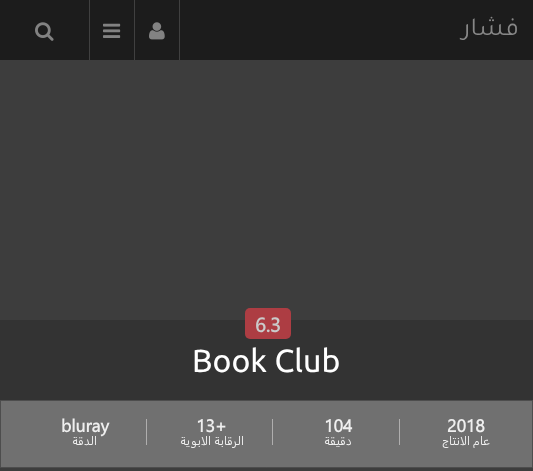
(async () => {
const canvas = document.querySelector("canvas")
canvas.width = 533
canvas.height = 471
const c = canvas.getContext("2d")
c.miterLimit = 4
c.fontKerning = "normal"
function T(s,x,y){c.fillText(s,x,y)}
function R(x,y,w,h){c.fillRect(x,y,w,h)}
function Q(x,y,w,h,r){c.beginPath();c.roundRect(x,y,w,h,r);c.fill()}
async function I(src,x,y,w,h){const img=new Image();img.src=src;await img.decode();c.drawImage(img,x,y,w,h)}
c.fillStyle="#3d3d3d"
R(0,0,533,471)
c.fillStyle="#1c1c1c"
R(0,0,533,60)
c.direction="rtl"
c.font="26px Tajawal"
c.fillStyle="#878787"
T("فشار",519,35)
c.fillStyle="#404040"
R(179,0,1,60)
R(134,0,1,60)
await I("1.png",149,22,16,18)
R(89,0,1,60)
await I("2.png",103,23,18,15)
await I("3.png",35,22,19,19)
c.fillStyle="#333"
R(0,320,533,80)
c.fillStyle="#ad3d43"
Q(245,308,46,31,5)
c.direction="ltr"
c.font="bold 20px Segoe UI"
c.fillStyle="#cacaca"
T("6.3",255,332)
c.font="32px Ubuntu"
c.fillStyle="#fff"
T("Book Club",192,372)
c.fillStyle="#707070"
c.beginPath()
c.rect(.5,400.5,532,67)
c.fill()
c.strokeStyle="#4d4d4d"
c.stroke()
c.font="bold 17.5px Segoe UI"
c.fillStyle="#efefef"
T("2018",447,432)
c.direction="rtl"
c.font="12px Segoe UI"
T("عام الانتاج",490,445)
c.fillStyle="#afaeae"
R(399,419,1,26)
c.direction="ltr"
c.font="bold 17.5px Segoe UI"
c.fillStyle="#efefef"
T("104",324,432)
c.direction="rtl"
c.font="12px Segoe UI"
T("دقيقة",352,445)
c.fillStyle="#afaeae"
R(272,419,1,26)
c.direction="ltr"
c.font="bold 17.5px Segoe UI"
c.fillStyle="#efefef"
T("13+",196,432)
c.direction="rtl"
c.font="12px Segoe UI"
T("الرقابة الابوية",244,445)
c.fillStyle="#afaeae"
R(146,419,1,26)
c.direction="ltr"
c.font="bold 17.5px Segoe UI"
c.fillStyle="#efefef"
T("bluray",61,432)
c.direction="rtl"
c.font="12px Segoe UI"
T("الدقة",97,445)
})()
